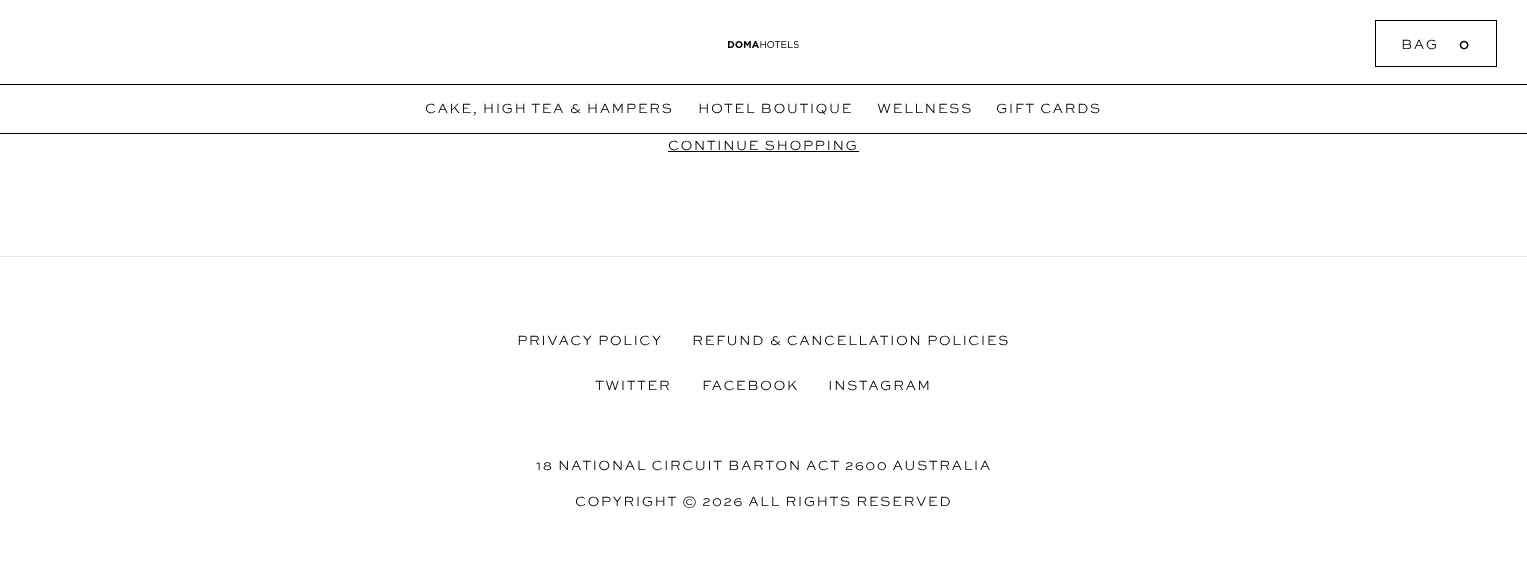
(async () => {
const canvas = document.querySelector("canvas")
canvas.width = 1527
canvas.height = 569
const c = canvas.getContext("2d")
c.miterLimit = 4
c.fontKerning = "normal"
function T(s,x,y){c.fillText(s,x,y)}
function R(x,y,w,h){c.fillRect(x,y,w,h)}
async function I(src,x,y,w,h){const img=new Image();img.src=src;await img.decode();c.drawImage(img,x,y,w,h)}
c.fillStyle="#fff"
R(0,0,1527,569)
c.fillStyle="#000"
R(0,133,1527,1)
await I("1.png",728,41,71,7)
c.strokeStyle="#000"
c.strokeRect(1375.5,20.5,121,46)
c.letterSpacing="1.4px"
c.font="300 14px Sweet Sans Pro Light"
T("BAG",1401,49)
c.font="500 14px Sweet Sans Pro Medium"
T("0",1459,49)
c.font="300 14px Sweet Sans Pro Light"
T("CAKE, HIGH TEA & HAMPERS",425,113)
T("HOTEL BOUTIQUE",698,113)
T("WELLNESS",877,113)
T("GIFT CARDS",996,113)
R(0,84,1527,1)
T("CONTINUE SHOPPING",668,150)
R(668,151,191,1)
c.fillStyle="#e6e6e6"
R(0,256,1527,1)
c.fillStyle="#000"
T("PRIVACY POLICY",517,345)
T("REFUND & CANCELLATION POLICIES",692,345)
T("TWITTER",595,390)
T("FACEBOOK",702,390)
T("INSTAGRAM",828,390)
T("18 NATIONAL CIRCUIT BARTON ACT 2600 AUSTRALIA",536,470)
T("COPYRIGHT © 2026 ALL RIGHTS RESERVED",575,506)
})()
